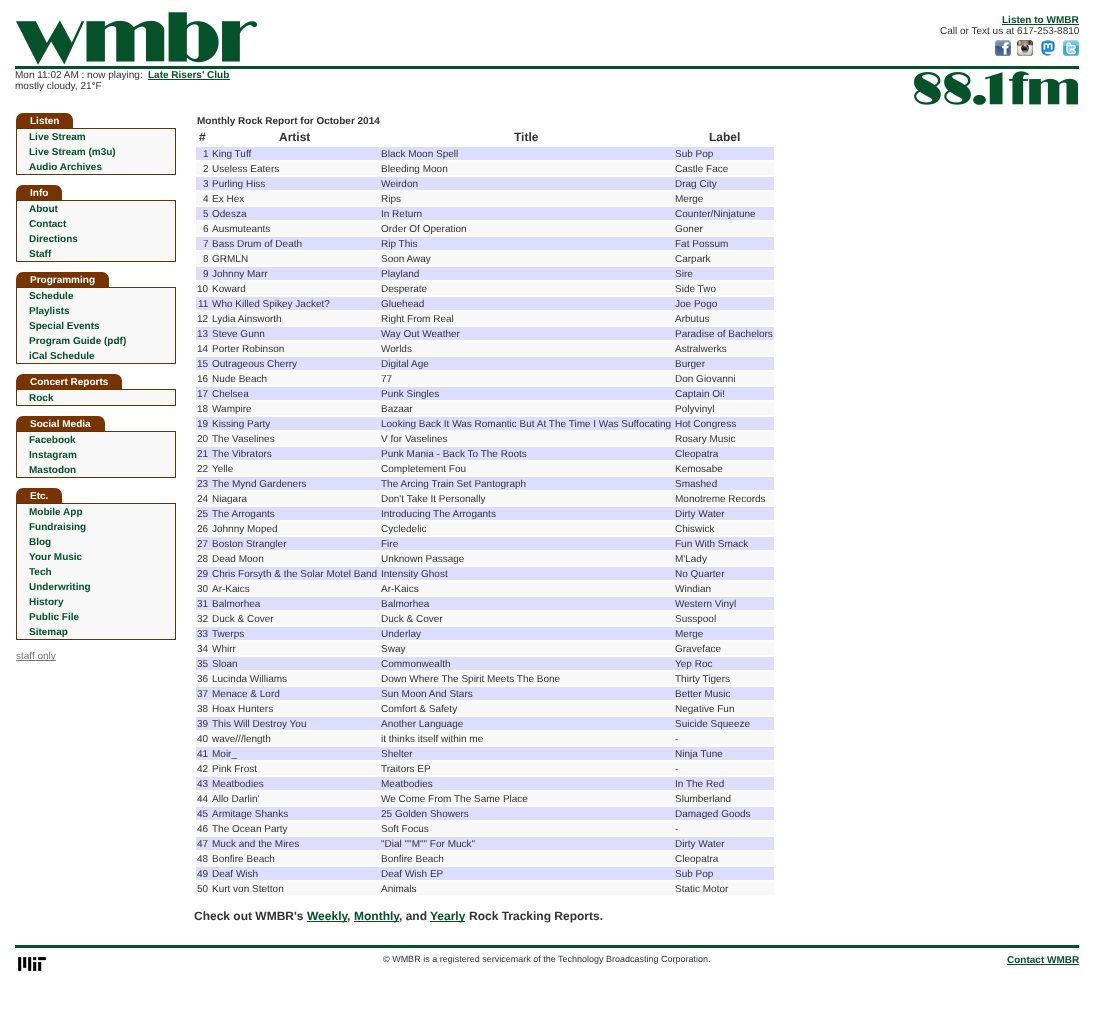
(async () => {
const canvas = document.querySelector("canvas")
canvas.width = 1094
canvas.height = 1019
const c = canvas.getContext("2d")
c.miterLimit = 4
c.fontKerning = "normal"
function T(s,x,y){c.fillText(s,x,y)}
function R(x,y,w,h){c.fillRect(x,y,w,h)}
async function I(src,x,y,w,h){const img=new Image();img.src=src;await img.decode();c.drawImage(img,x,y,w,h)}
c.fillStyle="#fff"
R(0,0,1094,1019)
await I("1.png",16,12,241,53)
c.font="bold 10px Liberation Sans"
c.fillStyle="#05522a"
T("Listen to WMBR",1002,23)
R(1002,24,77,1)
c.font="10px Liberation Sans"
c.fillStyle="#333"
T("Call or Text us at 617-253-8810",940,34)
await I("2.png",995,40,16,16)
await I("3.png",1017,40,16,16)
await I("4.png",1041,40,15,16)
await I("5.png",1063,40,16,16)
c.fillStyle="#05522a"
R(15,66,1064,3)
c.fillStyle="#333"
T("Mon 11:02 AM : now playing:",15,78)
c.font="bold 10px Liberation Sans"
c.fillStyle="#05522a"
T("Late Risers' Club",148,78)
R(148,79,82,1)
c.font="10px Liberation Sans"
c.fillStyle="#333"
T("mostly cloudy, 21°F",15,89)
await I("6.png",914,71,164,34)
c.fillStyle="#730"
c.beginPath()
c.roundRect(16,113,57,15,[7,7,0,0])
c.fill()
c.font="bold 10px Liberation Sans"
c.fillStyle="#fff"
T("Listen",30,124)
c.fillStyle="#630"
R(16,128,160,1)
R(175,128,1,47)
R(16,174,160,1)
R(16,128,1,47)
c.fillStyle="#f8f8f8"
R(17,129,158,45)
c.fillStyle="#05522a"
T("Live Stream",29,140)
T("Live Stream (m3u)",29,155)
T("Audio Archives",29,170)
c.fillStyle="#730"
c.beginPath()
c.roundRect(16,185,46,15,[7,7,0,0])
c.fill()
c.fillStyle="#fff"
T("Info",30,196)
c.fillStyle="#630"
R(16,200,160,1)
R(175,200,1,62)
R(16,261,160,1)
R(16,200,1,62)
c.fillStyle="#f8f8f8"
R(17,201,158,60)
c.fillStyle="#05522a"
T("About",29,212)
T("Contact",29,227)
T("Directions",29,242)
T("Staff",29,257)
c.fillStyle="#730"
c.beginPath()
c.roundRect(16,272,93,15,[7,7,0,0])
c.fill()
c.fillStyle="#fff"
T("Programming",30,283)
c.fillStyle="#630"
R(16,287,160,1)
R(175,287,1,77)
R(16,363,160,1)
R(16,287,1,77)
c.fillStyle="#f8f8f8"
R(17,288,158,75)
c.fillStyle="#05522a"
T("Schedule",29,299)
T("Playlists",29,314)
T("Special Events",29,329)
T("Program Guide (pdf)",29,344)
T("iCal Schedule",29,359)
c.fillStyle="#730"
c.beginPath()
c.roundRect(16,374,106,15,[7,7,0,0])
c.fill()
c.fillStyle="#fff"
T("Concert Reports",30,385)
c.fillStyle="#630"
R(16,389,160,1)
R(175,389,1,17)
R(16,405,160,1)
R(16,389,1,17)
c.fillStyle="#f8f8f8"
R(17,390,158,15)
c.fillStyle="#05522a"
T("Rock",29,401)
c.fillStyle="#730"
c.beginPath()
c.roundRect(16,416,89,15,[7,7,0,0])
c.fill()
c.fillStyle="#fff"
T("Social Media",30,427)
c.fillStyle="#630"
R(16,431,160,1)
R(175,431,1,47)
R(16,477,160,1)
R(16,431,1,47)
c.fillStyle="#f8f8f8"
R(17,432,158,45)
c.fillStyle="#05522a"
T("Facebook",29,443)
T("Instagram",29,458)
T("Mastodon",29,473)
c.fillStyle="#730"
c.beginPath()
c.roundRect(16,488,46,15,[7,7,0,0])
c.fill()
c.fillStyle="#fff"
T("Etc.",30,499)
c.fillStyle="#630"
R(16,503,160,1)
R(175,503,1,137)
R(16,639,160,1)
R(16,503,1,137)
c.fillStyle="#f8f8f8"
R(17,504,158,135)
c.fillStyle="#05522a"
T("Mobile App",29,515)
T("Fundraising",29,530)
T("Blog",29,545)
T("Your Music",29,560)
T("Tech",29,575)
T("Underwriting",29,590)
T("History",29,605)
T("Public File",29,620)
T("Sitemap",29,635)
c.fillStyle="#777"
R(16,660,40,1)
c.font="10px Liberation Sans"
T("staff only",16,659)
c.font="bold 10px Liberation Sans"
c.fillStyle="#333"
T("Monthly Rock Report for October 2014",197,124)
c.font="bold 12px Liberation Sans"
T("#",199,141)
T("Artist",279,141)
T("Title",514,141)
T("Label",709,141)
c.fillStyle="#ddf"
R(196,147,578,13)
c.font="10px Liberation Sans"
c.fillStyle="#333"
T("1",203,157)
T("King Tuff",212,157)
T("Black Moon Spell",381,157)
T("Sub Pop",675,157)
c.fillStyle="#f8f8f8"
R(196,162,578,13)
c.fillStyle="#333"
T("2",203,172)
T("Useless Eaters",212,172)
T("Bleeding Moon",381,172)
T("Castle Face",675,172)
c.fillStyle="#ddf"
R(196,177,578,13)
c.fillStyle="#333"
T("3",203,187)
T("Purling Hiss",212,187)
T("Weirdon",381,187)
T("Drag City",675,187)
c.fillStyle="#f8f8f8"
R(196,192,578,13)
c.fillStyle="#333"
T("4",203,202)
T("Ex Hex",212,202)
T("Rips",381,202)
T("Merge",675,202)
c.fillStyle="#ddf"
R(196,207,578,13)
c.fillStyle="#333"
T("5",203,217)
T("Odesza",212,217)
T("In Return",381,217)
T("Counter/Ninjatune",675,217)
c.fillStyle="#f8f8f8"
R(196,222,578,13)
c.fillStyle="#333"
T("6",203,232)
T("Ausmuteants",212,232)
T("Order Of Operation",381,232)
T("Goner",675,232)
c.fillStyle="#ddf"
R(196,237,578,13)
c.fillStyle="#333"
T("7",203,247)
T("Bass Drum of Death",212,247)
T("Rip This",381,247)
T("Fat Possum",675,247)
c.fillStyle="#f8f8f8"
R(196,252,578,13)
c.fillStyle="#333"
T("8",203,262)
T("GRMLN",212,262)
T("Soon Away",381,262)
T("Carpark",675,262)
c.fillStyle="#ddf"
R(196,267,578,13)
c.fillStyle="#333"
T("9",203,277)
T("Johnny Marr",212,277)
T("Playland",381,277)
T("Sire",675,277)
c.fillStyle="#f8f8f8"
R(196,282,578,13)
c.fillStyle="#333"
T("10",197,292)
T("Koward",212,292)
T("Desperate",381,292)
T("Side Two",675,292)
c.fillStyle="#ddf"
R(196,297,578,13)
c.fillStyle="#333"
T("11",198,307)
T("Who Killed Spikey Jacket?",212,307)
T("Gluehead",381,307)
T("Joe Pogo",675,307)
c.fillStyle="#f8f8f8"
R(196,312,578,13)
c.fillStyle="#333"
T("12",197,322)
T("Lydia Ainsworth",212,322)
T("Right From Real",381,322)
T("Arbutus",675,322)
c.fillStyle="#ddf"
R(196,327,578,13)
c.fillStyle="#333"
T("13",197,337)
T("Steve Gunn",212,337)
T("Way Out Weather",381,337)
T("Paradise of Bachelors",675,337)
c.fillStyle="#f8f8f8"
R(196,342,578,13)
c.fillStyle="#333"
T("14",197,352)
T("Porter Robinson",212,352)
T("Worlds",381,352)
T("Astralwerks",675,352)
c.fillStyle="#ddf"
R(196,357,578,13)
c.fillStyle="#333"
T("15",197,367)
T("Outrageous Cherry",212,367)
T("Digital Age",381,367)
T("Burger",675,367)
c.fillStyle="#f8f8f8"
R(196,372,578,13)
c.fillStyle="#333"
T("16",197,382)
T("Nude Beach",212,382)
T("77",381,382)
T("Don Giovanni",675,382)
c.fillStyle="#ddf"
R(196,387,578,13)
c.fillStyle="#333"
T("17",197,397)
T("Chelsea",212,397)
T("Punk Singles",381,397)
T("Captain Oi!",675,397)
c.fillStyle="#f8f8f8"
R(196,402,578,13)
c.fillStyle="#333"
T("18",197,412)
T("Wampire",212,412)
T("Bazaar",381,412)
T("Polyvinyl",675,412)
c.fillStyle="#ddf"
R(196,417,578,13)
c.fillStyle="#333"
T("19",197,427)
T("Kissing Party",212,427)
T("Looking Back It Was Romantic But At The Time I Was Suffocating",381,427)
T("Hot Congress",675,427)
c.fillStyle="#f8f8f8"
R(196,432,578,13)
c.fillStyle="#333"
T("20",197,442)
T("The Vaselines",212,442)
T("V for Vaselines",381,442)
T("Rosary Music",675,442)
c.fillStyle="#ddf"
R(196,447,578,13)
c.fillStyle="#333"
T("21",197,457)
T("The Vibrators",212,457)
T("Punk Mania - Back To The Roots",381,457)
T("Cleopatra",675,457)
c.fillStyle="#f8f8f8"
R(196,462,578,13)
c.fillStyle="#333"
T("22",197,472)
T("Yelle",212,472)
T("Completement Fou",381,472)
T("Kemosabe",675,472)
c.fillStyle="#ddf"
R(196,477,578,13)
c.fillStyle="#333"
T("23",197,487)
T("The Mynd Gardeners",212,487)
T("The Arcing Train Set Pantograph",381,487)
T("Smashed",675,487)
c.fillStyle="#f8f8f8"
R(196,492,578,13)
c.fillStyle="#333"
T("24",197,502)
T("Niagara",212,502)
T("Don't Take It Personally",381,502)
T("Monotreme Records",675,502)
c.fillStyle="#ddf"
R(196,507,578,13)
c.fillStyle="#333"
T("25",197,517)
T("The Arrogants",212,517)
T("Introducing The Arrogants",381,517)
T("Dirty Water",675,517)
c.fillStyle="#f8f8f8"
R(196,522,578,13)
c.fillStyle="#333"
T("26",197,532)
T("Johnny Moped",212,532)
T("Cycledelic",381,532)
T("Chiswick",675,532)
c.fillStyle="#ddf"
R(196,537,578,13)
c.fillStyle="#333"
T("27",197,547)
T("Boston Strangler",212,547)
T("Fire",381,547)
T("Fun With Smack",675,547)
c.fillStyle="#f8f8f8"
R(196,552,578,13)
c.fillStyle="#333"
T("28",197,562)
T("Dead Moon",212,562)
T("Unknown Passage",381,562)
T("M'Lady",675,562)
c.fillStyle="#ddf"
R(196,567,578,13)
c.fillStyle="#333"
T("29",197,577)
T("Chris Forsyth & the Solar Motel Band",212,577)
T("Intensity Ghost",381,577)
T("No Quarter",675,577)
c.fillStyle="#f8f8f8"
R(196,582,578,13)
c.fillStyle="#333"
T("30",197,592)
T("Ar-Kaics",212,592)
T("Ar-Kaics",381,592)
T("Windian",675,592)
c.fillStyle="#ddf"
R(196,597,578,13)
c.fillStyle="#333"
T("31",197,607)
T("Balmorhea",212,607)
T("Balmorhea",381,607)
T("Western Vinyl",675,607)
c.fillStyle="#f8f8f8"
R(196,612,578,13)
c.fillStyle="#333"
T("32",197,622)
T("Duck & Cover",212,622)
T("Duck & Cover",381,622)
T("Susspool",675,622)
c.fillStyle="#ddf"
R(196,627,578,13)
c.fillStyle="#333"
T("33",197,637)
T("Twerps",212,637)
T("Underlay",381,637)
T("Merge",675,637)
c.fillStyle="#f8f8f8"
R(196,642,578,13)
c.fillStyle="#333"
T("34",197,652)
T("Whirr",212,652)
T("Sway",381,652)
T("Graveface",675,652)
c.fillStyle="#ddf"
R(196,657,578,13)
c.fillStyle="#333"
T("35",197,667)
T("Sloan",212,667)
T("Commonwealth",381,667)
T("Yep Roc",675,667)
c.fillStyle="#f8f8f8"
R(196,672,578,13)
c.fillStyle="#333"
T("36",197,682)
T("Lucinda Williams",212,682)
T("Down Where The Spirit Meets The Bone",381,682)
T("Thirty Tigers",675,682)
c.fillStyle="#ddf"
R(196,687,578,13)
c.fillStyle="#333"
T("37",197,697)
T("Menace & Lord",212,697)
T("Sun Moon And Stars",381,697)
T("Better Music",675,697)
c.fillStyle="#f8f8f8"
R(196,702,578,13)
c.fillStyle="#333"
T("38",197,712)
T("Hoax Hunters",212,712)
T("Comfort & Safety",381,712)
T("Negative Fun",675,712)
c.fillStyle="#ddf"
R(196,717,578,13)
c.fillStyle="#333"
T("39",197,727)
T("This Will Destroy You",212,727)
T("Another Language",381,727)
T("Suicide Squeeze",675,727)
c.fillStyle="#f8f8f8"
R(196,732,578,13)
c.fillStyle="#333"
T("40",197,742)
T("wave///length",212,742)
T("it thinks itself within me",381,742)
T("-",675,742)
c.fillStyle="#ddf"
R(196,747,578,13)
c.fillStyle="#333"
T("41",197,757)
T("Moir_",212,757)
T("Shelter",381,757)
T("Ninja Tune",675,757)
c.fillStyle="#f8f8f8"
R(196,762,578,13)
c.fillStyle="#333"
T("42",197,772)
T("Pink Frost",212,772)
T("Traitors EP",381,772)
T("-",675,772)
c.fillStyle="#ddf"
R(196,777,578,13)
c.fillStyle="#333"
T("43",197,787)
T("Meatbodies",212,787)
T("Meatbodies",381,787)
T("In The Red",675,787)
c.fillStyle="#f8f8f8"
R(196,792,578,13)
c.fillStyle="#333"
T("44",197,802)
T("Allo Darlin'",212,802)
T("We Come From The Same Place",381,802)
T("Slumberland",675,802)
c.fillStyle="#ddf"
R(196,807,578,13)
c.fillStyle="#333"
T("45",197,817)
T("Armitage Shanks",212,817)
T("25 Golden Showers",381,817)
T("Damaged Goods",675,817)
c.fillStyle="#f8f8f8"
R(196,822,578,13)
c.fillStyle="#333"
T("46",197,832)
T("The Ocean Party",212,832)
T("Soft Focus",381,832)
T("-",675,832)
c.fillStyle="#ddf"
R(196,837,578,13)
c.fillStyle="#333"
T("47",197,847)
T("Muck and the Mires",212,847)
T("\"Dial \"\"M\"\" For Muck\"",381,847)
T("Dirty Water",675,847)
c.fillStyle="#f8f8f8"
R(196,852,578,13)
c.fillStyle="#333"
T("48",197,862)
T("Bonfire Beach",212,862)
T("Bonfire Beach",381,862)
T("Cleopatra",675,862)
c.fillStyle="#ddf"
R(196,867,578,13)
c.fillStyle="#333"
T("49",197,877)
T("Deaf Wish",212,877)
T("Deaf Wish EP",381,877)
T("Sub Pop",675,877)
c.fillStyle="#f8f8f8"
R(196,882,578,13)
c.fillStyle="#333"
T("50",197,892)
T("Kurt von Stetton",212,892)
T("Animals",381,892)
T("Static Motor",675,892)
c.font="bold 12px Liberation Sans"
T("Check out WMBR's",194,920)
c.fillStyle="#05522a"
R(307,921,40,1)
T("Weekly",307,920)
c.fillStyle="#333"
T(",",347,920)
c.fillStyle="#05522a"
R(354,921,45,1)
T("Monthly",354,920)
c.fillStyle="#333"
T(", and",399,920)
c.fillStyle="#05522a"
R(430,921,35,1)
T("Yearly",430,920)
c.fillStyle="#333"
T("Rock Tracking Reports.",469,920)
c.fillStyle="#05522a"
R(15,945,1064,3)
await I("7.png",18,957,28,14)
c.font="9px Liberation Sans"
c.fillStyle="#333"
T("© WMBR is a registered servicemark of the Technology Broadcasting Corporation.",383,962)
c.font="bold 10px Liberation Sans"
c.fillStyle="#05522a"
T("Contact WMBR",1007,963)
R(1007,964,72,1)
})()
